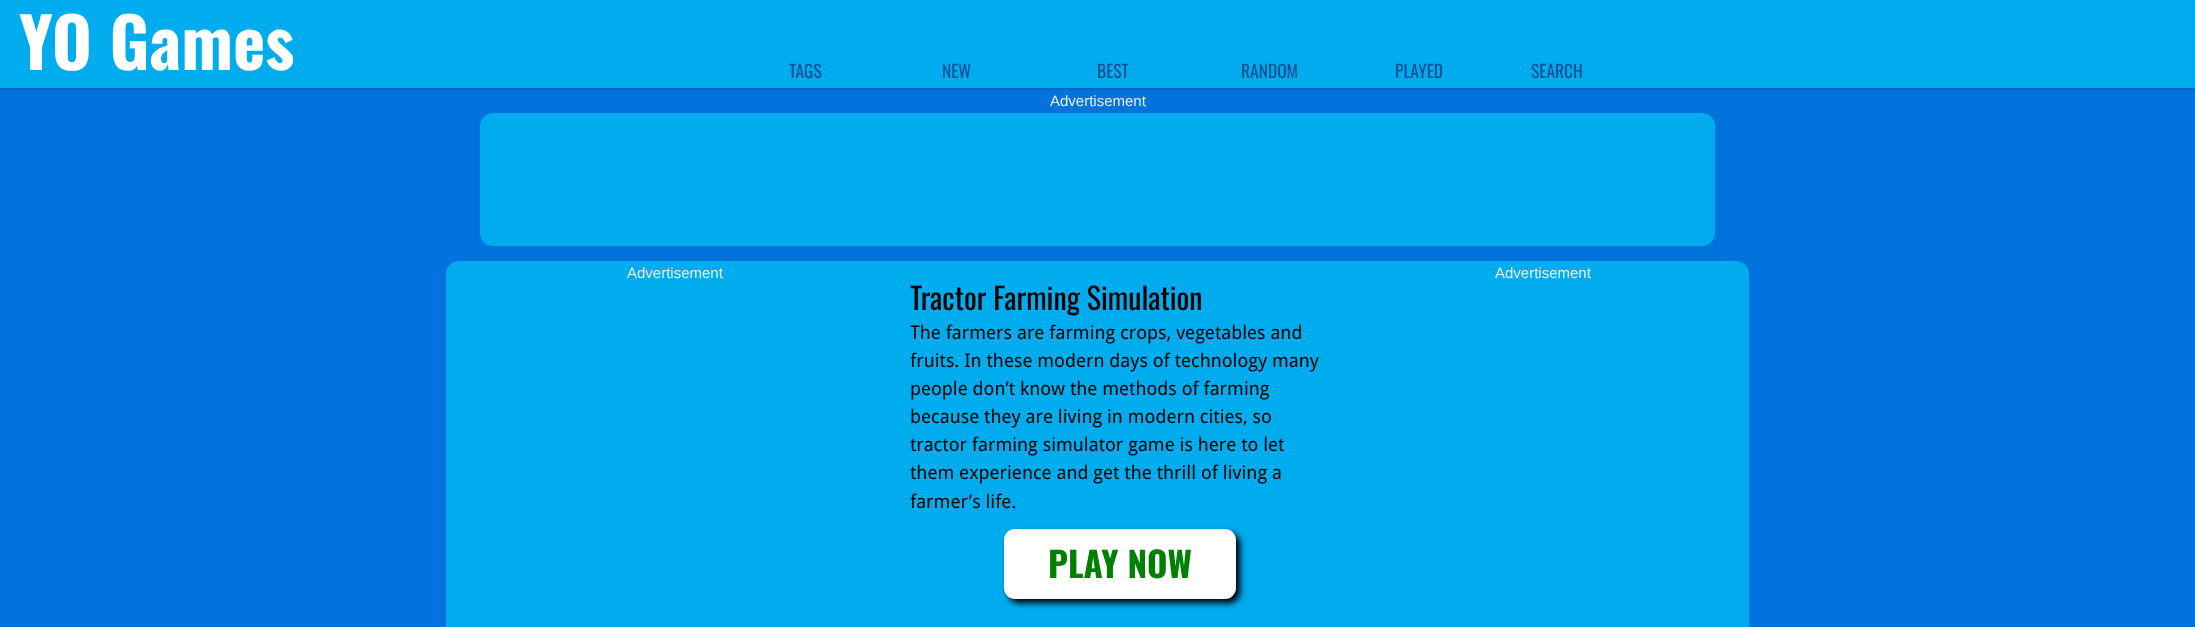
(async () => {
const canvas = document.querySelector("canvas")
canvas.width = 2195
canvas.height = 627
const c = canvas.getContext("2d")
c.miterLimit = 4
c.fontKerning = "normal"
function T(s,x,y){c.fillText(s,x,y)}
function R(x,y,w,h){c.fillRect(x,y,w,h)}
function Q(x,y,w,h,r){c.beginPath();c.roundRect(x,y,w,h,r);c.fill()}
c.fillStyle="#0073dd"
R(0,0,2195,627)
c.fillStyle="#00000033"
c.filter="blur(1px)"
c.beginPath()
c.rect(0,1,2195,88)
c.fill()
c.filter="none"
c.fillStyle="#00acee"
R(0,0,2195,88)
c.font="bold 68.75px Oswald"
c.fillStyle="#fff"
T("YO Games",19,70)
c.font="17.5px Oswald"
c.fillStyle="#035193"
T("TAGS",789,78)
T("NEW",942,78)
T("BEST",1097,78)
T("RANDOM",1241,78)
T("PLAYED",1395,78)
T("SEARCH",1531,78)
c.font="15px Liberation Sans"
c.fillStyle="#eee"
T("Advertisement",1050,106)
c.fillStyle="#00acee"
Q(480,113,1235,133,13)
Q(446,261,1303,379,13)
c.fillStyle="#eee"
T("Advertisement",627,278)
T("Advertisement",1495,278)
c.font="30px Oswald"
c.fillStyle="#000"
T("Tractor Farming Simulation",910,310)
c.font="18.75px Droid Sans"
T("The farmers are farming crops, vegetables and",910,339)
T("fruits. In these modern days of technology many",910,367)
T("people don’t know the methods of farming",910,395)
T("because they are living in modern cities, so",910,423)
T("tractor farming simulator game is here to let",910,451)
T("them experience and get the thrill of living a",910,479)
T("farmer’s life.",910,508)
c.filter="blur(3px)"
c.beginPath()
c.roundRect(1008,533,232,70,11)
c.fill()
c.filter="none"
c.fillStyle="#fff"
c.beginPath()
c.roundRect(1008.5,533.5,223,61,6.5)
c.fill()
c.strokeStyle="#fff"
c.lineWidth=9
c.stroke()
c.font="bold 35px Oswald"
c.fillStyle="#008000"
T("PLAY NOW",1048,578)
})()
